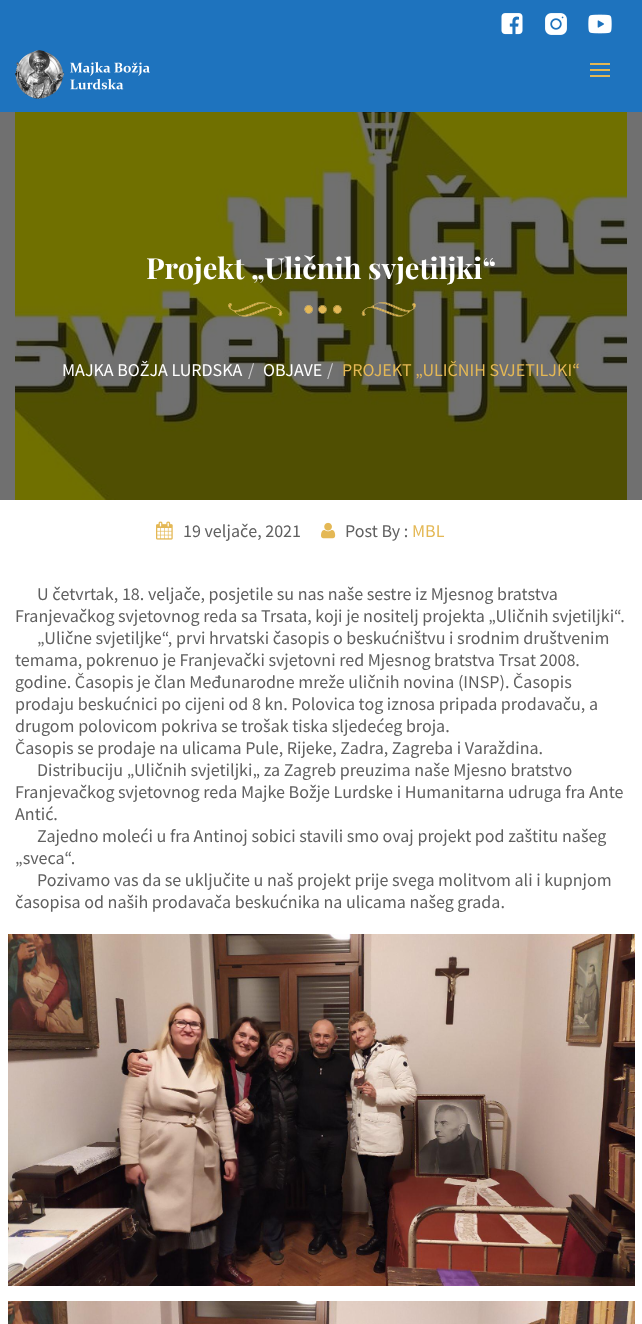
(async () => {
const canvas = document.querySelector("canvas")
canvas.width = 642
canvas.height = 1324
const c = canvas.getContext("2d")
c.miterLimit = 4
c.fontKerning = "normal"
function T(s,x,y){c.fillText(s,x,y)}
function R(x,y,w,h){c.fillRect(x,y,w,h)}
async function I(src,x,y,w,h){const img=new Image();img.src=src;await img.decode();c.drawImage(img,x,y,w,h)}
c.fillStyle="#fff"
R(0,0,642,1324)
c.fillStyle="#707070"
R(0,112,642,388)
c.fillStyle="#1e73be"
R(0,0,642,112)
await I("1.png",501,13,22,22)
await I("2.png",545,13,22,22)
await I("3.png",588,14,24,20)
await I("4.png",15,50,135,49)
c.fillStyle="#e4b855"
R(590,63,20,2)
R(590,69,20,2)
R(590,75,20,2)
await I("6.png",15,112,612,388)
c.font="bold 29px Playfair Display"
c.fillStyle="#fff"
T("Projekt „Uličnih svjetiljki“",146,279)
await I("5.png",228,302,188,15)
c.font="18px Source Sans Pro"
T("MAJKA BOŽJA LURDSKA",62,376)
c.fillStyle="#ccc"
T("/",248,376)
c.fillStyle="#fff"
T("OBJAVE",263,376)
c.fillStyle="#ccc"
T("/",327,376)
c.fillStyle="#e4b855"
T("PROJEKT „ULIČNIH SVJETILJKI“",342,376)
await I("7.png",156,521,17,19)
c.fillStyle="#606060"
T("19 veljače, 2021",183,537)
await I("8.png",321,522,15,17)
T("Post By :",345,537)
c.fillStyle="#e4b855"
T("MBL",412,537)
c.fillStyle="#606060"
T("U četvrtak, 18. veljače, posjetile su nas naše sestre iz Mjesnog bratstva",37,600)
T("Franjevačkog svjetovnog reda sa Trsata, koji je nositelj projekta „Uličnih svjetiljki“.",15,622)
T("„Ulične svjetiljke“, prvi hrvatski časopis o beskućništvu i srodnim društvenim",37,644)
T("temama, pokrenuo je Franjevački svjetovni red Mjesnog bratstva Trsat 2008.",15,666)
T("godine. Časopis je član Međunarodne mreže uličnih novina (INSP). Časopis",15,688)
T("prodaju beskućnici po cijeni od 8 kn. Polovica tog iznosa pripada prodavaču, a",15,710)
T("drugom polovicom pokriva se trošak tiska sljedećeg broja.",15,732)
T("Časopis se prodaje na ulicama Pule, Rijeke, Zadra, Zagreba i Varaždina.",15,754)
T("Distribuciju „Uličnih svjetiljki„ za Zagreb preuzima naše Mjesno bratstvo",37,776)
T("Franjevačkog svjetovnog reda Majke Božje Lurdske i Humanitarna udruga fra Ante",15,798)
T("Antić.",15,820)
T("Zajedno moleći u fra Antinoj sobici stavili smo ovaj projekt pod zaštitu našeg",37,842)
T("„sveca“.",15,864)
T("Pozivamo vas da se uključite u naš projekt prije svega molitvom ali i kupnjom",37,886)
T("časopisa od naših prodavača beskućnika na ulicama našeg grada.",15,908)
await I("9.png",8,934,627,352)
await I("10.png",8,1301,627,23)
})()
